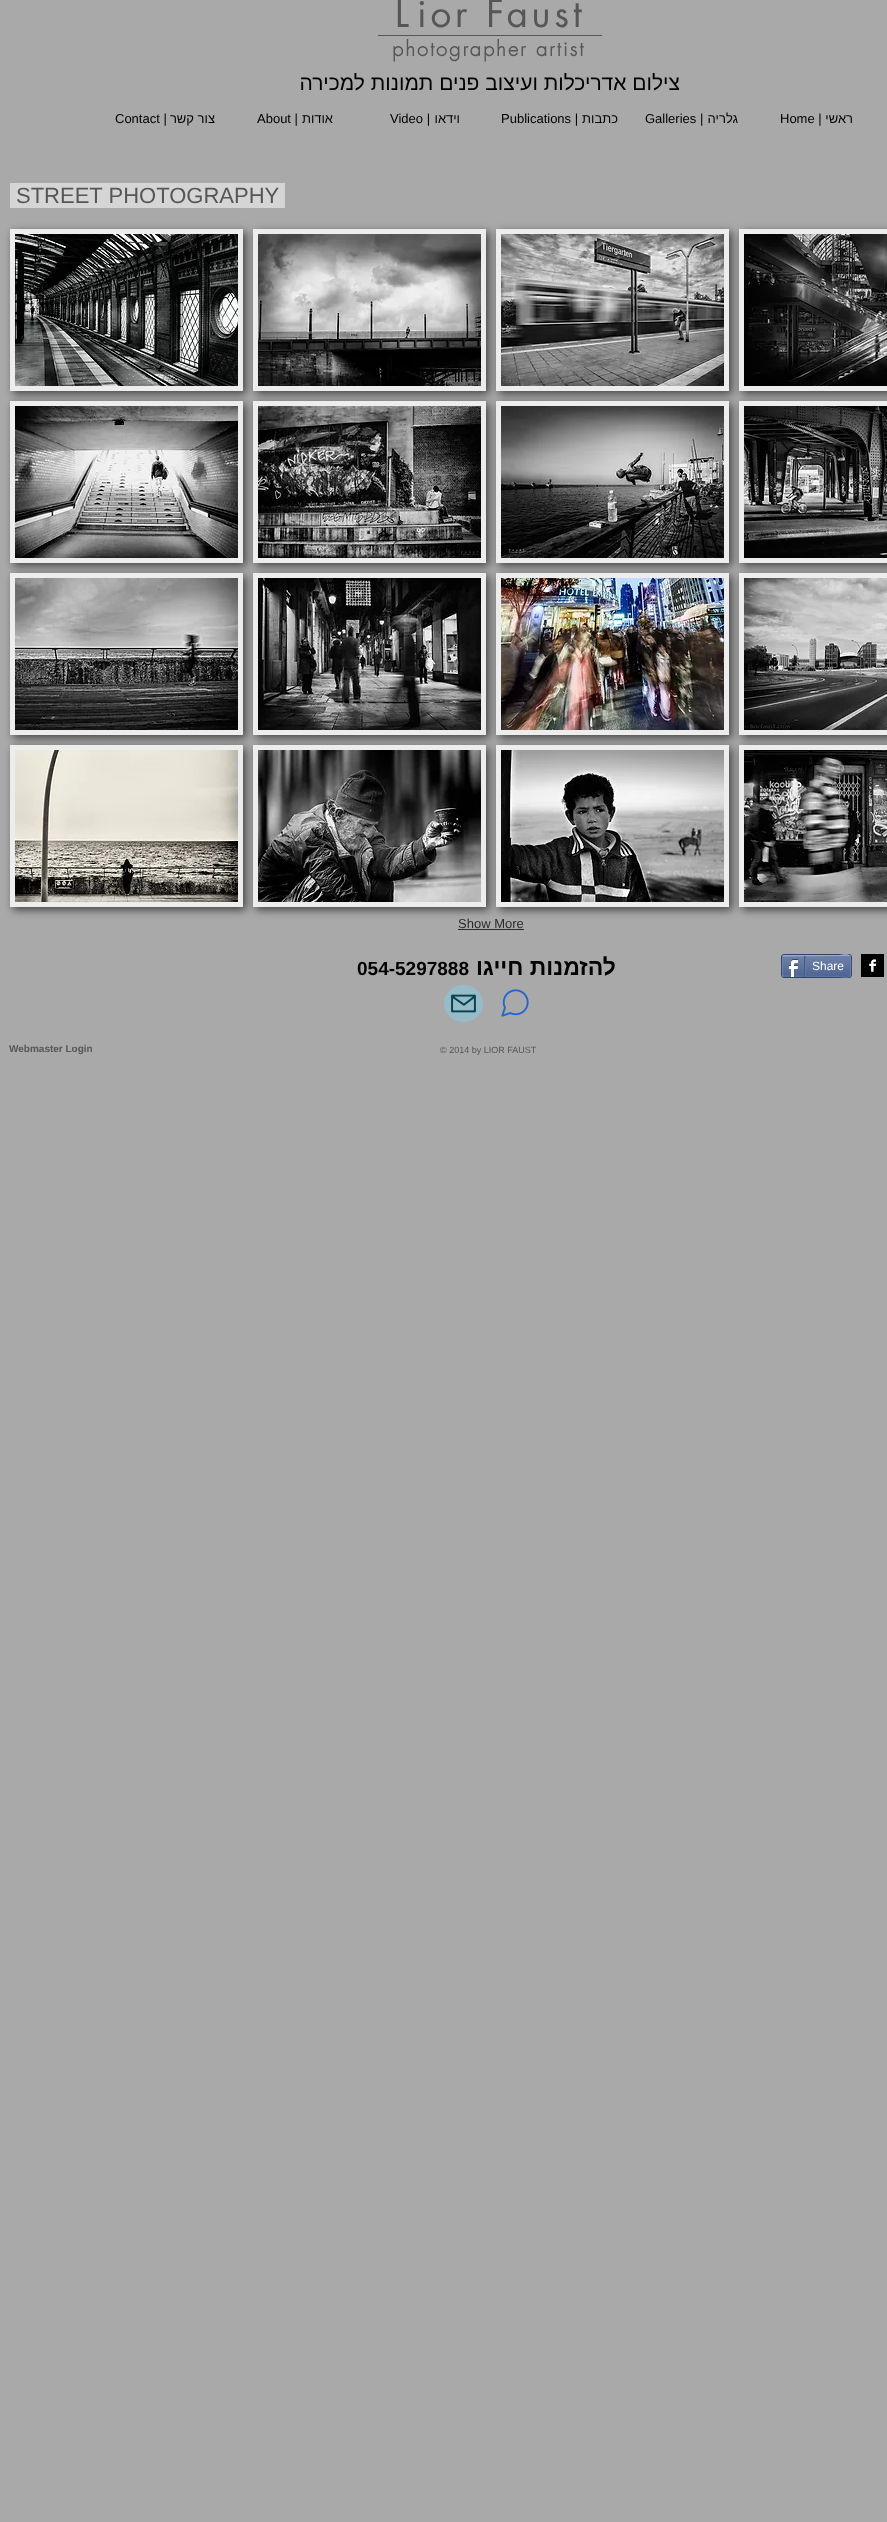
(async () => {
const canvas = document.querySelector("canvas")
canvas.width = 887
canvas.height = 2522
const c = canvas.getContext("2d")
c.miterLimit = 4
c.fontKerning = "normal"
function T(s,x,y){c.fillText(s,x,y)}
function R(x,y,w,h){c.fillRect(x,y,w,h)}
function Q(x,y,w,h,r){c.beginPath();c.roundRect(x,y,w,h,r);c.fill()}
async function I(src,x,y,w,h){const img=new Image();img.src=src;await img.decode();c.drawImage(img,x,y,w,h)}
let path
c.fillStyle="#a9a9a9"
R(0,0,887,2522)
c.letterSpacing="7px"
c.font="37px futura"
c.fillStyle="#565656"
T("L",395,27)
c.letterSpacing="3.75px"
T("ior Faust",417,27)
R(378,35,224,1)
c.letterSpacing="2px"
c.font="bold 20px futura"
T("photographer artist",392,56)
c.letterSpacing="0px"
c.direction="rtl"
c.font="21px Liberation Sans"
c.fillStyle="#000"
T("צילום אדריכלות ועיצוב פנים תמונות למכירה",680,90)
c.direction="ltr"
c.font="13px Liberation Sans"
T("Contact |",115,123)
c.direction="rtl"
T("צור קשר",215,123)
c.direction="ltr"
T("About |",257,123)
c.direction="rtl"
T("אודות",333,123)
c.direction="ltr"
T("Video |",390,123)
c.direction="rtl"
T("וידאו",460,123)
c.direction="ltr"
T("Publications |",501,123)
c.direction="rtl"
T("כתבות",618,123)
c.direction="ltr"
T("Galleries |",645,123)
c.direction="rtl"
T("גלריה",738,123)
c.direction="ltr"
T("Home |",780,123)
c.direction="rtl"
T("ראשי",853,123)
c.fillStyle="#d5d5d5"
R(10,183,275,25)
c.direction="ltr"
c.font="22px Liberation Sans"
c.fillStyle="#565656"
T("STREET PHOTOGRAPHY",16,203)
c.fillStyle="#00000099"
c.filter="blur(4px)"
c.beginPath()
c.rect(13,232,233,162)
c.fill()
c.filter="none"
c.fillStyle="#ededed"
R(10,229,233,162)
await I("1.png",15,234,223,152)
c.fillStyle="#00000099"
c.filter="blur(4px)"
c.beginPath()
c.rect(256,232,233,162)
c.fill()
c.filter="none"
c.fillStyle="#ededed"
R(253,229,233,162)
await I("2.png",258,234,223,152)
c.fillStyle="#00000099"
c.filter="blur(4px)"
c.beginPath()
c.rect(499,232,233,162)
c.fill()
c.filter="none"
c.fillStyle="#ededed"
R(496,229,233,162)
await I("3.png",501,234,223,152)
c.fillStyle="#00000099"
c.filter="blur(4px)"
c.beginPath()
c.rect(742,232,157,162)
c.fill()
c.filter="none"
c.fillStyle="#ededed"
R(739,229,148,162)
await I("4.png",744,234,143,152)
c.fillStyle="#00000099"
c.filter="blur(4px)"
c.beginPath()
c.rect(13,404,233,162)
c.fill()
c.filter="none"
c.fillStyle="#ededed"
R(10,401,233,162)
await I("5.png",15,406,223,152)
c.fillStyle="#00000099"
c.filter="blur(4px)"
c.beginPath()
c.rect(256,404,233,162)
c.fill()
c.filter="none"
c.fillStyle="#ededed"
R(253,401,233,162)
await I("6.png",258,406,223,152)
c.fillStyle="#00000099"
c.filter="blur(4px)"
c.beginPath()
c.rect(499,404,233,162)
c.fill()
c.filter="none"
c.fillStyle="#ededed"
R(496,401,233,162)
await I("7.png",501,406,223,152)
c.fillStyle="#00000099"
c.filter="blur(4px)"
c.beginPath()
c.rect(742,404,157,162)
c.fill()
c.filter="none"
c.fillStyle="#ededed"
R(739,401,148,162)
await I("8.png",744,406,143,152)
c.fillStyle="#00000099"
c.filter="blur(4px)"
c.beginPath()
c.rect(13,576,233,162)
c.fill()
c.filter="none"
c.fillStyle="#ededed"
R(10,573,233,162)
await I("9.png",15,578,223,152)
c.fillStyle="#00000099"
c.filter="blur(4px)"
c.beginPath()
c.rect(256,576,233,162)
c.fill()
c.filter="none"
c.fillStyle="#ededed"
R(253,573,233,162)
await I("10.png",258,578,223,152)
c.fillStyle="#00000099"
c.filter="blur(4px)"
c.beginPath()
c.rect(499,576,233,162)
c.fill()
c.filter="none"
c.fillStyle="#ededed"
R(496,573,233,162)
await I("11.png",501,578,223,152)
c.fillStyle="#00000099"
c.filter="blur(4px)"
c.beginPath()
c.rect(742,576,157,162)
c.fill()
c.filter="none"
c.fillStyle="#ededed"
R(739,573,148,162)
await I("12.png",744,578,143,152)
c.fillStyle="#00000099"
c.filter="blur(4px)"
c.beginPath()
c.rect(13,748,233,162)
c.fill()
c.filter="none"
c.fillStyle="#ededed"
R(10,745,233,162)
await I("13.png",15,750,223,152)
c.fillStyle="#00000099"
c.filter="blur(4px)"
c.beginPath()
c.rect(256,748,233,162)
c.fill()
c.filter="none"
c.fillStyle="#ededed"
R(253,745,233,162)
await I("14.png",258,750,223,152)
c.fillStyle="#00000099"
c.filter="blur(4px)"
c.beginPath()
c.rect(499,748,233,162)
c.fill()
c.filter="none"
c.fillStyle="#ededed"
R(496,745,233,162)
await I("15.png",501,750,223,152)
c.fillStyle="#00000099"
c.filter="blur(4px)"
c.beginPath()
c.rect(742,748,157,162)
c.fill()
c.filter="none"
c.fillStyle="#ededed"
R(739,745,148,162)
await I("16.png",744,750,143,152)
c.font="13px Liberation Sans"
c.fillStyle="#2b2b2b"
T("Show More",458,928)
R(458,929,66,1)
c.font="bold 19px Liberation Sans"
c.fillStyle="#000"
T("054-5297888",357,975)
c.direction="rtl"
c.font="bold 23px Liberation Sans"
T("להזמנות חייגו",616,975)
c.beginPath()
c.roundRect(781.5,954.5,70,23,2.5)
c.strokeStyle="#2d4565"
c.stroke()
await I("17.png",782,956,69,21)
path = new Path2D("M783 956l55-.5c4 0 9-2.5 12 .5")
c.strokeStyle="#9aabc6"
c.stroke(path)
path = new Path2D("M850 956c1 .5 1 19.5 0 20")
c.strokeStyle="#6f83ad"
c.stroke(path)
path = new Path2D("M850 976c-3 3-8 .5-12 .5l-55-.5")
c.strokeStyle="#6176a3"
c.stroke(path)
path = new Path2D("M783 976c-1-.5-1-19.5 0-20")
c.strokeStyle="#6f83ad"
c.stroke(path)
await I("18.png",788,959,10,18)
c.fillStyle="#425e85"
R(804,956,1,21)
c.direction="ltr"
c.font="12px Liberation Sans"
c.fillStyle="#fff"
T("Share",812,970)
c.fillStyle="#6176a3"
R(805,956,1,20)
await I("19.png",861,954,23,23)
c.fillStyle="#97bcc8"
Q(444,985,39,37,18.5)
await I("20.png",451,994,25,19)
await I("21.png",501,989,28,28)
c.font="bold 10px Liberation Sans"
c.fillStyle="#565656"
T("Webmaster Login",9,1052)
c.font="9px Liberation Sans"
T("© 2014 by LIOR FAUST",440,1053)
})()
